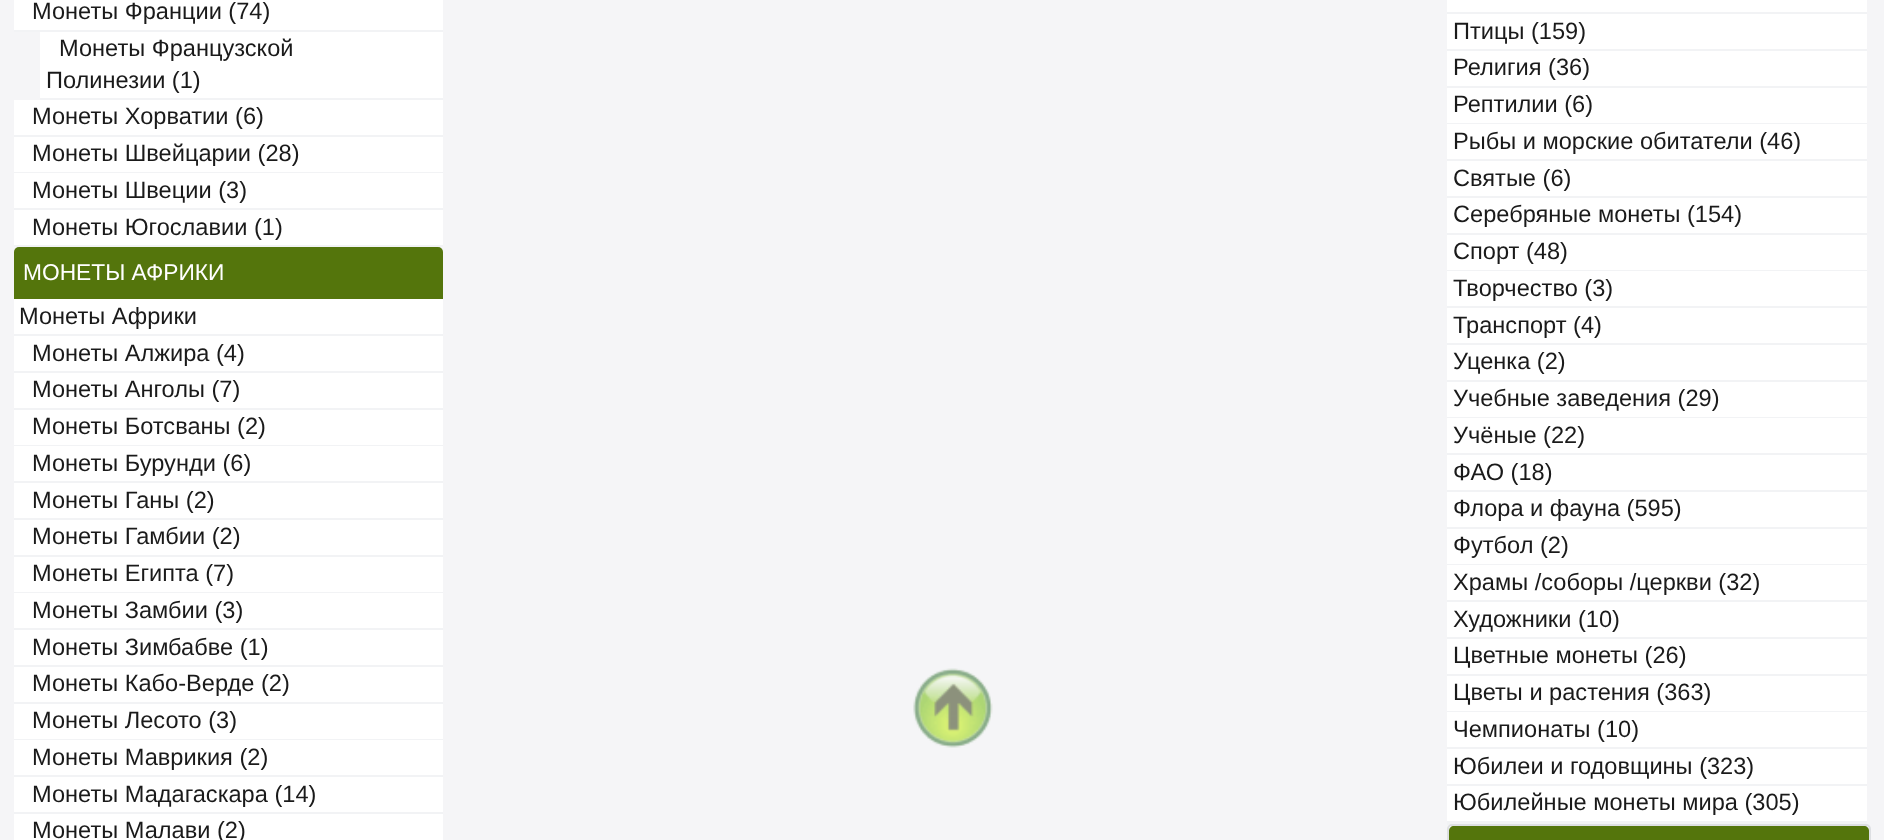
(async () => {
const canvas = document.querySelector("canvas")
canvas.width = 1884
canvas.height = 840
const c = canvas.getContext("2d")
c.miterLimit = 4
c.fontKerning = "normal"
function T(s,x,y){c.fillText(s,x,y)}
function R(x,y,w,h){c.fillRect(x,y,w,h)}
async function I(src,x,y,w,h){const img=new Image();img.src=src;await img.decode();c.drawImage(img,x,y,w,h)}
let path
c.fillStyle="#f5f5f7"
R(0,0,1884,840)
c.fillStyle="#fff"
R(14,0,429,30)
c.fillStyle="#f2f3f5"
R(14,30,429,2)
c.font="23.6px Liberation Sans"
c.fillStyle="#1a1a1a"
T("Монеты Франции (74)",32,19)
c.fillStyle="#fff"
R(40,32,403,66)
c.fillStyle="#f2f3f5"
R(40,98,403,2)
c.fillStyle="#1a1a1a"
T("Монеты Французской",59,56)
T("Полинезии (1)",46,88)
c.fillStyle="#fff"
R(14,100,429,35)
c.fillStyle="#f2f3f5"
R(14,135,429,2)
c.fillStyle="#1a1a1a"
T("Монеты Хорватии (6)",32,124)
c.fillStyle="#fff"
R(14,137,429,35)
c.fillStyle="#f2f3f5"
R(14,172,429,1)
c.fillStyle="#1a1a1a"
T("Монеты Швейцарии (28)",32,161)
c.fillStyle="#fff"
R(14,173,429,35)
c.fillStyle="#f2f3f5"
R(14,208,429,2)
c.fillStyle="#1a1a1a"
T("Монеты Швеции (3)",32,198)
c.fillStyle="#fff"
R(14,210,429,35)
c.fillStyle="#f2f3f5"
R(14,245,429,2)
c.fillStyle="#1a1a1a"
T("Монеты Югославии (1)",32,235)
c.fillStyle="#54750c"
c.beginPath()
c.roundRect(14,247,429,52,[5,5,0,0])
c.fill()
c.font="22.75px Liberation Sans"
c.fillStyle="#fff"
T("МОНЕТЫ АФРИКИ",23,280)
R(14,299,429,35)
c.fillStyle="#f2f3f5"
R(14,334,429,2)
c.font="23.6px Liberation Sans"
c.fillStyle="#1a1a1a"
T("Монеты Африки",19,324)
c.fillStyle="#fff"
R(14,336,429,35)
c.fillStyle="#f2f3f5"
R(14,371,429,2)
c.fillStyle="#1a1a1a"
T("Монеты Алжира (4)",32,361)
c.fillStyle="#fff"
R(14,373,429,35)
c.fillStyle="#f2f3f5"
R(14,408,429,2)
c.fillStyle="#1a1a1a"
T("Монеты Анголы (7)",32,397)
c.fillStyle="#fff"
R(14,410,429,35)
c.fillStyle="#f2f3f5"
R(14,445,429,1)
c.fillStyle="#1a1a1a"
T("Монеты Ботсваны (2)",32,434)
c.fillStyle="#fff"
R(14,446,429,35)
c.fillStyle="#f2f3f5"
R(14,481,429,2)
c.fillStyle="#1a1a1a"
T("Монеты Бурунди (6)",32,471)
c.fillStyle="#fff"
R(14,483,429,35)
c.fillStyle="#f2f3f5"
R(14,518,429,2)
c.fillStyle="#1a1a1a"
T("Монеты Ганы (2)",32,508)
c.fillStyle="#fff"
R(14,520,429,35)
c.fillStyle="#f2f3f5"
R(14,555,429,2)
c.fillStyle="#1a1a1a"
T("Монеты Гамбии (2)",32,544)
c.fillStyle="#fff"
R(14,557,429,35)
c.fillStyle="#f2f3f5"
R(14,592,429,1)
c.fillStyle="#1a1a1a"
T("Монеты Египта (7)",32,581)
c.fillStyle="#fff"
R(14,593,429,35)
c.fillStyle="#f2f3f5"
R(14,628,429,2)
c.fillStyle="#1a1a1a"
T("Монеты Замбии (3)",32,618)
c.fillStyle="#fff"
R(14,630,429,35)
c.fillStyle="#f2f3f5"
R(14,665,429,2)
c.fillStyle="#1a1a1a"
T("Монеты Зимбабве (1)",32,655)
c.fillStyle="#fff"
R(14,667,429,35)
c.fillStyle="#f2f3f5"
R(14,702,429,2)
c.fillStyle="#1a1a1a"
T("Монеты Кабо-Верде (2)",32,691)
c.fillStyle="#fff"
R(14,704,429,35)
c.fillStyle="#f2f3f5"
R(14,739,429,1)
c.fillStyle="#1a1a1a"
T("Монеты Лесото (3)",32,728)
c.fillStyle="#fff"
R(14,740,429,35)
c.fillStyle="#f2f3f5"
R(14,775,429,2)
c.fillStyle="#1a1a1a"
T("Монеты Маврикия (2)",32,765)
c.fillStyle="#fff"
R(14,777,429,35)
c.fillStyle="#f2f3f5"
R(14,812,429,2)
c.fillStyle="#1a1a1a"
T("Монеты Мадагаскара (14)",32,802)
c.fillStyle="#fff"
R(14,814,429,26)
c.fillStyle="#1a1a1a"
T("Монеты Малави (2)",32,838)
c.fillStyle="#f2f3f5"
R(1447,821,420,4)
c.fillStyle="#fff"
R(1447,0,420,12)
c.fillStyle="#f2f3f5"
R(1447,12,420,2)
c.fillStyle="#fff"
R(1447,14,420,35)
c.fillStyle="#f2f3f5"
R(1447,49,420,2)
c.fillStyle="#1a1a1a"
T("Птицы (159)",1453,39)
c.fillStyle="#fff"
R(1447,51,420,35)
c.fillStyle="#f2f3f5"
R(1447,86,420,2)
c.fillStyle="#1a1a1a"
T("Религия (36)",1453,75)
c.fillStyle="#fff"
R(1447,88,420,35)
c.fillStyle="#f2f3f5"
R(1447,123,420,1)
c.fillStyle="#1a1a1a"
T("Рептилии (6)",1453,112)
c.fillStyle="#fff"
R(1447,124,420,35)
c.fillStyle="#f2f3f5"
R(1447,159,420,2)
c.fillStyle="#1a1a1a"
T("Рыбы и морские обитатели (46)",1453,149)
c.fillStyle="#fff"
R(1447,161,420,35)
c.fillStyle="#f2f3f5"
R(1447,196,420,2)
c.fillStyle="#1a1a1a"
T("Святые (6)",1453,186)
c.fillStyle="#fff"
R(1447,198,420,35)
c.fillStyle="#f2f3f5"
R(1447,233,420,2)
c.fillStyle="#1a1a1a"
T("Серебряные монеты (154)",1453,222)
c.fillStyle="#fff"
R(1447,235,420,35)
c.fillStyle="#f2f3f5"
R(1447,270,420,1)
c.fillStyle="#1a1a1a"
T("Спорт (48)",1453,259)
c.fillStyle="#fff"
R(1447,271,420,35)
c.fillStyle="#f2f3f5"
R(1447,306,420,2)
c.fillStyle="#1a1a1a"
T("Творчество (3)",1453,296)
c.fillStyle="#fff"
R(1447,308,420,35)
c.fillStyle="#f2f3f5"
R(1447,343,420,2)
c.fillStyle="#1a1a1a"
T("Транспорт (4)",1453,333)
c.fillStyle="#fff"
R(1447,345,420,35)
c.fillStyle="#f2f3f5"
R(1447,380,420,2)
c.fillStyle="#1a1a1a"
T("Уценка (2)",1453,369)
c.fillStyle="#fff"
R(1447,382,420,35)
c.fillStyle="#f2f3f5"
R(1447,417,420,1)
c.fillStyle="#1a1a1a"
T("Учебные заведения (29)",1453,406)
c.fillStyle="#fff"
R(1447,418,420,35)
c.fillStyle="#f2f3f5"
R(1447,453,420,2)
c.fillStyle="#1a1a1a"
T("Учёные (22)",1453,443)
c.fillStyle="#fff"
R(1447,455,420,35)
c.fillStyle="#f2f3f5"
R(1447,490,420,2)
c.fillStyle="#1a1a1a"
T("ФАО (18)",1453,480)
c.fillStyle="#fff"
R(1447,492,420,35)
c.fillStyle="#f2f3f5"
R(1447,527,420,2)
c.fillStyle="#1a1a1a"
T("Флора и фауна (595)",1453,516)
c.fillStyle="#fff"
R(1447,529,420,35)
c.fillStyle="#f2f3f5"
R(1447,564,420,1)
c.fillStyle="#1a1a1a"
T("Футбол (2)",1453,553)
c.fillStyle="#fff"
R(1447,565,420,35)
c.fillStyle="#f2f3f5"
R(1447,600,420,2)
c.fillStyle="#1a1a1a"
T("Храмы /соборы /церкви (32)",1453,590)
c.fillStyle="#fff"
R(1447,602,420,35)
c.fillStyle="#f2f3f5"
R(1447,637,420,2)
c.fillStyle="#1a1a1a"
T("Художники (10)",1453,627)
c.fillStyle="#fff"
R(1447,639,420,35)
c.fillStyle="#f2f3f5"
R(1447,674,420,2)
c.fillStyle="#1a1a1a"
T("Цветные монеты (26)",1453,663)
c.fillStyle="#fff"
R(1447,676,420,35)
c.fillStyle="#f2f3f5"
R(1447,711,420,1)
c.fillStyle="#1a1a1a"
T("Цветы и растения (363)",1453,700)
c.fillStyle="#fff"
R(1447,712,420,35)
c.fillStyle="#f2f3f5"
R(1447,747,420,2)
c.fillStyle="#1a1a1a"
T("Чемпионаты (10)",1453,737)
c.fillStyle="#fff"
R(1447,749,420,35)
c.fillStyle="#f2f3f5"
R(1447,784,420,2)
c.fillStyle="#1a1a1a"
T("Юбилеи и годовщины (323)",1453,774)
c.fillStyle="#fff"
R(1447,786,420,35)
c.fillStyle="#1a1a1a"
T("Юбилейные монеты мира (305)",1453,810)
c.beginPath()
c.roundRect(1448,825,422,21,4)
c.strokeStyle="#dddfe2"
c.lineWidth=2
c.stroke()
c.fillStyle="#54750c"
path = new Path2D("M1454 826h410c3 0 5 2 5 5v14h-420v-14c0-3 2-5 5-5z")
c.fill(path)
await I("1.png",913,668,80,80)
})()
